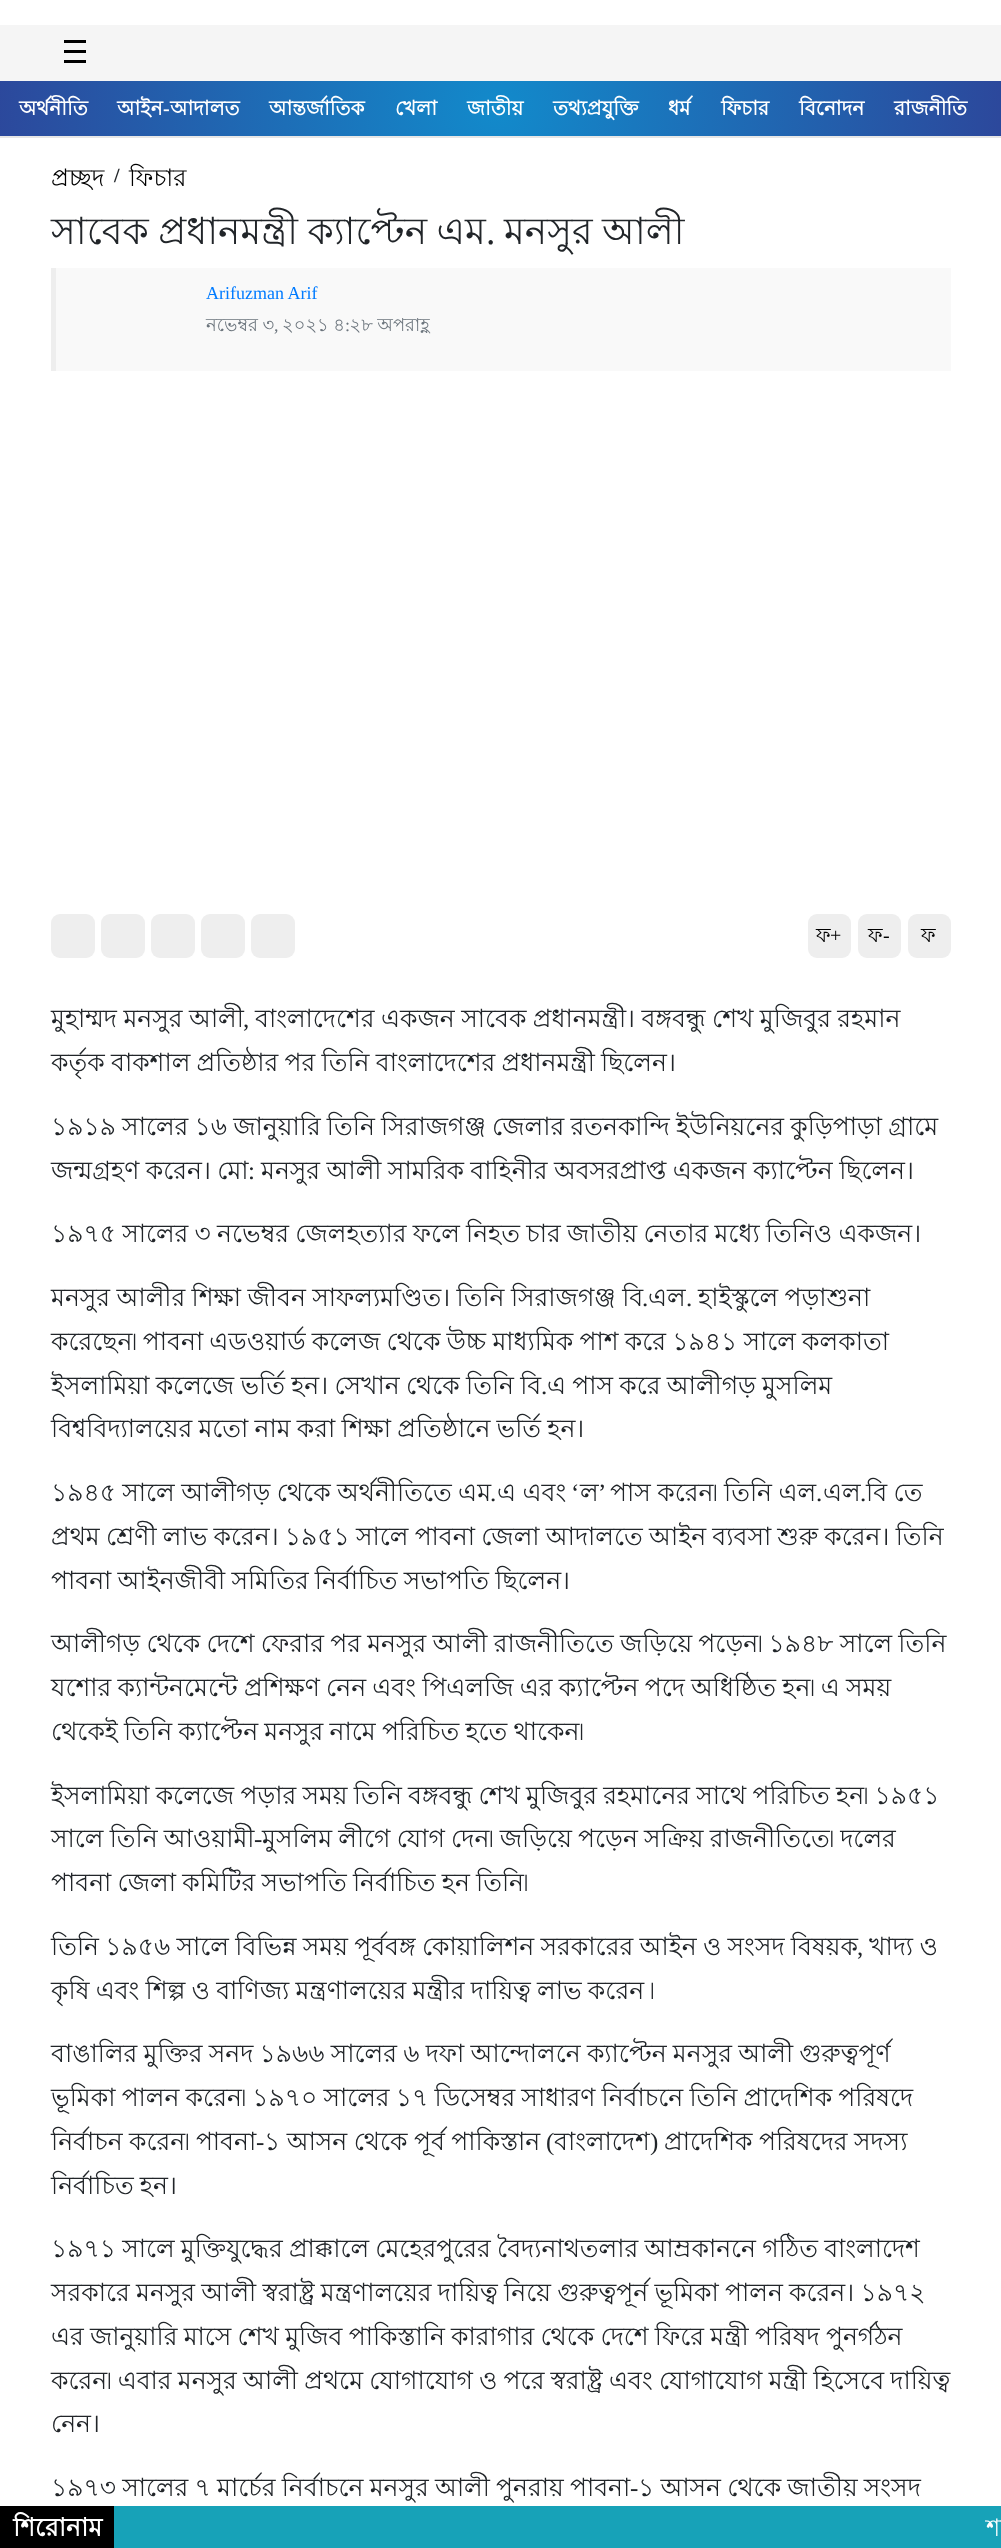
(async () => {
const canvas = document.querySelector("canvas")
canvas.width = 1001
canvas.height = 2548
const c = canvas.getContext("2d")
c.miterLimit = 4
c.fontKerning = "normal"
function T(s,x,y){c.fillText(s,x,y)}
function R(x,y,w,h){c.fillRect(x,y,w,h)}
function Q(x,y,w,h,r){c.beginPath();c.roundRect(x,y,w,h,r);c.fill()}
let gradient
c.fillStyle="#fff"
R(0,0,1001,2548)
c.fillStyle="#f5f5f5"
R(0,25,1001,56)
c.fillStyle="#000"
R(64,40,22,3)
R(64,50,22,3)
R(64,60,22,3)
c.fillStyle="#e6e6e6"
R(0,136,1001,2)
gradient = c.createRadialGradient(498,108,0,498,108,618)
gradient.addColorStop(0,"#128acb")
gradient.addColorStop(1,"#323991")
c.fillStyle = gradient
R(0,81,1001,55)
c.font="bold 20px Lohit Bengali"
c.fillStyle="#fff"
T("অর্থনীতি",19,115)
T("আইন",117,115)
c.font="bold 20px Liberation Serif"
T("-",163,115)
c.font="bold 20px Lohit Bengali"
T("আদালত",170,115)
T("আন্তর্জাতিক",269,115)
T("খেলা",395,115)
T("জাতীয়",467,115)
T("তথ্যপ্রযুক্তি",553,115)
T("ধর্ম",668,115)
T("ফিচার",721,115)
T("বিনোদন",799,115)
T("রাজনীতি",894,115)
c.font="24px Lohit Bengali"
c.fillStyle="#000"
T("প্রচ্ছদ",51,186)
c.font="bold 20px Liberation Serif"
c.fillStyle="#212529"
T("/",114,182)
c.font="24px Lohit Bengali"
c.fillStyle="#000"
T("ফিচার",129,186)
c.wordSpacing="-1px"
c.font="37.5px Lohit Bengali"
c.fillStyle="#212529"
T("সাবেক প্রধানমন্ত্রী ক্যাপ্টেন এম",51,244)
c.wordSpacing="0px"
c.font="37.5px Liberation Serif"
T(".",486,244)
c.wordSpacing="-1px"
c.font="37.5px Lohit Bengali"
T("মনসুর আলী",504,244)
c.fillStyle="#f9f9f9"
R(56,268,895,103)
c.fillStyle="#eee"
R(51,268,5,103)
c.wordSpacing="0px"
c.font="18px Liberation Serif"
c.fillStyle="#007bff"
T("Arifuzman Arif",206,299)
c.wordSpacing="-0.5px"
c.font="18px Lohit Bengali"
c.fillStyle="#6c757d"
T("নভেম্বর ৩",206,331)
T("২০২১ ৪ ২৮ অপরাহ্ণ",282,331)
c.wordSpacing="0px"
c.font="18px Liberation Serif"
T(",",274,331)
T(":",345,331)
c.fillStyle="#eee"
Q(51,914,44,44,9)
Q(101,914,44,44,9)
Q(151,914,44,44,9)
Q(201,914,44,44,9)
Q(251,914,44,44,9)
Q(808,914,43,44,9)
c.font="20px Lohit Bengali"
c.fillStyle="#000"
T("ফ",816,942)
c.font="20px Liberation Serif"
T("+",830,942)
c.fillStyle="#eee"
Q(858,914,43,44,9)
c.font="20px Lohit Bengali"
c.fillStyle="#000"
T("ফ",868,942)
c.font="20px Liberation Serif"
T("-",883,942)
c.fillStyle="#eee"
Q(908,914,43,44,9)
c.font="20px Lohit Bengali"
c.fillStyle="#000"
T("ফ",921,942)
c.wordSpacing="-0.5px"
c.font="25px Lohit Bengali"
c.fillStyle="#212529"
T("মুহাম্মদ মনসুর আলী",51,1027)
c.wordSpacing="0px"
c.font="25px Liberation Serif"
T(",",243,1027)
c.wordSpacing="-0.5px"
c.font="25px Lohit Bengali"
T("বাংলাদেশের একজন সাবেক প্রধানমন্ত্রী। বঙ্গবন্ধু শেখ মুজিবুর রহমান",255,1027)
c.wordSpacing="-0.7px"
T("কর্তৃক বাকশাল প্রতিষ্ঠার পর তিনি বাংলাদেশের প্রধানমন্ত্রী ছিলেন।",51,1071)
T("১৯১৯ সালের ১৬ জানুয়ারি তিনি সিরাজগঞ্জ জেলার রতনকান্দি ইউনিয়নের কুড়িপাড়া গ্রামে",51,1135)
c.wordSpacing="-0.5px"
T("জন্মগ্রহণ করেন। মো",51,1179)
c.wordSpacing="0px"
c.font="25px Liberation Serif"
T(":",248,1179)
c.wordSpacing="-0.5px"
c.font="25px Lohit Bengali"
T("মনসুর আলী সামরিক বাহিনীর অবসরপ্রাপ্ত একজন ক্যাপ্টেন ছিলেন।",261,1179)
c.wordSpacing="-0.7px"
T("১৯৭৫ সালের ৩ নভেম্বর জেলহত্যার ফলে নিহত চার জাতীয় নেতার মধ্যে তিনিও একজন।",51,1242)
c.wordSpacing="-0.5px"
T("মনসুর আলীর শিক্ষা জীবন সাফল্যমণ্ডিত। তিনি সিরাজগঞ্জ বি",51,1306)
c.wordSpacing="0px"
c.font="25px Liberation Serif"
T(".",642,1306)
c.font="25px Lohit Bengali"
T("এল",648,1306)
c.font="25px Liberation Serif"
T(".",686,1306)
c.wordSpacing="-0.5px"
c.font="25px Lohit Bengali"
T("হাইস্কুলে পড়াশুনা",698,1306)
c.wordSpacing="-0.7px"
T("করেছেন৷ পাবনা এডওয়ার্ড কলেজ থেকে উচ্চ মাধ্যমিক পাশ করে ১৯৪১ সালে কলকাতা",51,1350)
T("ইসলামিয়া কলেজে ভর্তি হন। সেখান থেকে তিনি বি",51,1394)
c.wordSpacing="0px"
c.font="25px Liberation Serif"
T(".",541,1394)
c.wordSpacing="-0.7px"
c.font="25px Lohit Bengali"
T("এ পাস করে আলীগড় মুসলিম",547,1394)
T("বিশ্ববিদ্যালয়ের মতো নাম করা শিক্ষা প্রতিষ্ঠানে ভর্তি হন।",51,1437)
c.wordSpacing="-0.5px"
T("১৯৪৫ সালে আলীগড় থেকে অর্থনীতিতে এম",51,1501)
c.wordSpacing="0px"
c.font="25px Liberation Serif"
T(".",490,1501)
c.wordSpacing="-0.5px"
c.font="25px Lohit Bengali"
T("এ এবং",497,1501)
c.wordSpacing="0px"
c.font="25px Liberation Serif"
T("‘",571,1501)
c.font="25px Lohit Bengali"
T("ল",580,1501)
c.font="25px Liberation Serif"
T("’",598,1501)
c.wordSpacing="-0.5px"
c.font="25px Lohit Bengali"
T("পাস করেন৷ তিনি এল",610,1501)
c.wordSpacing="0px"
c.font="25px Liberation Serif"
T(".",816,1501)
c.font="25px Lohit Bengali"
T("এল",823,1501)
c.font="25px Liberation Serif"
T(".",860,1501)
c.wordSpacing="-0.5px"
c.font="25px Lohit Bengali"
T("বি তে",866,1501)
c.wordSpacing="-0.7px"
T("প্রথম শ্রেণী লাভ করেন। ১৯৫১ সালে পাবনা জেলা আদালতে আইন ব্যবসা শুরু করেন। তিনি",51,1545)
T("পাবনা আইনজীবী সমিতির নির্বাচিত সভাপতি ছিলেন।",51,1589)
T("আলীগড় থেকে দেশে ফেরার পর মনসুর আলী রাজনীতিতে জড়িয়ে পড়েন৷ ১৯৪৮ সালে তিনি",51,1652)
T("যশোর ক্যান্টনমেন্টে প্রশিক্ষণ নেন এবং পিএলজি এর ক্যাপ্টেন পদে অধিষ্ঠিত হন৷ এ সময়",51,1696)
T("থেকেই তিনি ক্যাপ্টেন মনসুর নামে পরিচিত হতে থাকেন৷",51,1740)
T("ইসলামিয়া কলেজে পড়ার সময় তিনি বঙ্গবন্ধু শেখ মুজিবুর রহমানের সাথে পরিচিত হন৷ ১৯৫১",51,1804)
T("সালে তিনি আওয়ামী",51,1847)
c.wordSpacing="0px"
c.font="25px Liberation Serif"
T("-",254,1847)
c.wordSpacing="-0.7px"
c.font="25px Lohit Bengali"
T("মুসলিম লীগে যোগ দেন৷ জড়িয়ে পড়েন সক্রিয় রাজনীতিতে৷ দলের",262,1847)
T("পাবনা জেলা কমিটির সভাপতি নির্বাচিত হন তিনি৷",51,1891)
c.wordSpacing="-0.6px"
T("তিনি ১৯৫৬ সালে বিভিন্ন সময় পূর্ববঙ্গ কোয়ালিশন সরকারের আইন ও সংসদ বিষয়ক",51,1955)
c.wordSpacing="0px"
c.font="25px Liberation Serif"
T(",",857,1955)
c.wordSpacing="-0.6px"
c.font="25px Lohit Bengali"
T("খাদ্য ও",869,1955)
c.wordSpacing="-0.7px"
T("কৃষি এবং শিল্প ও বাণিজ্য মন্ত্রণালয়ের মন্ত্রীর দায়িত্ব লাভ করেন ৷",51,1999)
T("বাঙালির মুক্তির সনদ ১৯৬৬ সালের ৬ দফা আন্দোলনে ক্যাপ্টেন মনসুর আলী গুরুত্বপূর্ণ",51,2062)
T("ভূমিকা পালন করেন৷ ১৯৭০ সালের ১৭ ডিসেম্বর সাধারণ নির্বাচনে তিনি প্রাদেশিক পরিষদে",51,2106)
c.wordSpacing="-0.5px"
T("নির্বাচন করেন৷ পাবনা",51,2150)
c.wordSpacing="0px"
c.font="25px Liberation Serif"
T("-",256,2150)
c.wordSpacing="-0.5px"
c.font="25px Lohit Bengali"
T("১ আসন থেকে পূর্ব পাকিস্তান",264,2150)
c.wordSpacing="0px"
c.font="25px Liberation Serif"
T("(",546,2150)
c.font="25px Lohit Bengali"
T("বাংলাদেশ",554,2150)
c.font="25px Liberation Serif"
T(")",650,2150)
c.wordSpacing="-0.5px"
c.font="25px Lohit Bengali"
T("প্রাদেশিক পরিষদের সদস্য",664,2150)
c.wordSpacing="-0.7px"
T("নির্বাচিত হন।",51,2194)
T("১৯৭১ সালে মুক্তিযুদ্ধের প্রাক্কালে মেহেরপুরের বৈদ্যনাথতলার আম্রকাননে গঠিত বাংলাদেশ",51,2257)
T("সরকারে মনসুর আলী স্বরাষ্ট্র মন্ত্রণালয়ের দায়িত্ব নিয়ে গুরুত্বপূর্ন ভূমিকা পালন করেন। ১৯৭২",51,2301)
T("এর জানুয়ারি মাসে শেখ মুজিব পাকিস্তানি কারাগার থেকে দেশে ফিরে মন্ত্রী পরিষদ পুনর্গঠন",51,2345)
T("করেন৷ এবার মনসুর আলী প্রথমে যোগাযোগ ও পরে স্বরাষ্ট্র এবং যোগাযোগ মন্ত্রী হিসেবে দায়িত্ব",51,2389)
c.wordSpacing="0px"
T("নেন।",51,2432)
c.wordSpacing="-0.7px"
T("১৯৭৩ সালের ৭ মার্চের নির্বাচনে মনসুর আলী পুনরায় পাবনা",51,2496)
c.wordSpacing="0px"
c.font="25px Liberation Serif"
T("-",630,2496)
c.wordSpacing="-0.7px"
c.font="25px Lohit Bengali"
T("১ আসন থেকে জাতীয় সংসদ",638,2496)
c.fillStyle="#17a2b8"
R(114,2506,887,42)
c.fillStyle="#000"
R(0,2506,114,42)
c.wordSpacing="0px"
c.font="bold 25px Lohit Bengali"
c.fillStyle="#fff"
T("শিরোনাম",13,2536)
c.wordSpacing="-1px"
c.font="24px Lohit Bengali"
T("শা",986,2536)
})()
